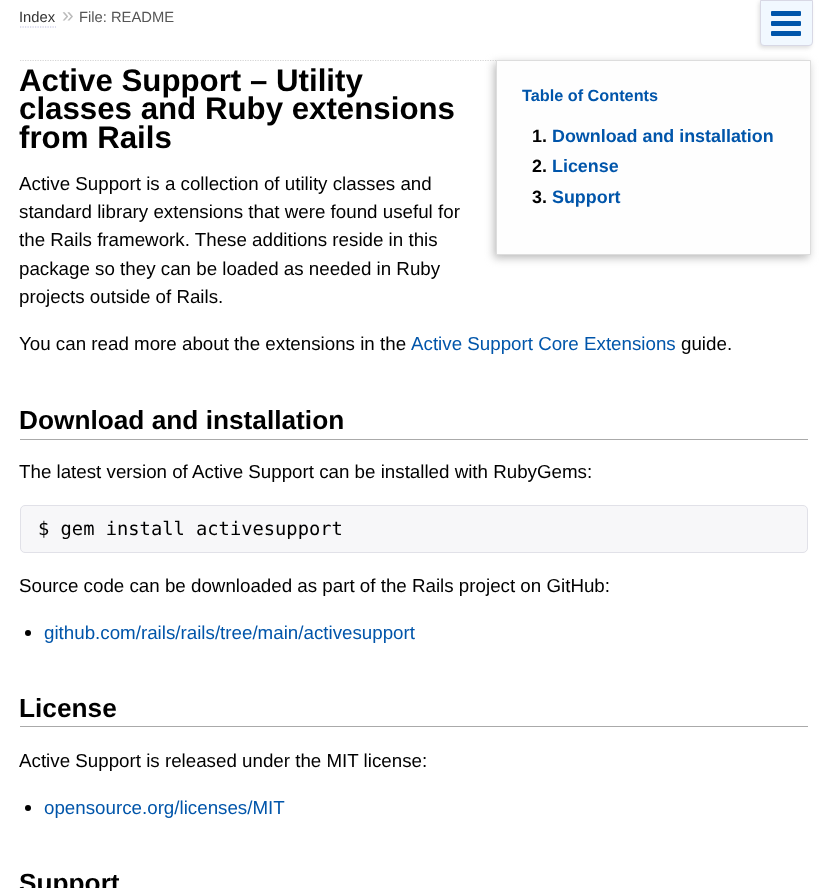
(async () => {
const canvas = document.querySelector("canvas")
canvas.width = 827
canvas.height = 888
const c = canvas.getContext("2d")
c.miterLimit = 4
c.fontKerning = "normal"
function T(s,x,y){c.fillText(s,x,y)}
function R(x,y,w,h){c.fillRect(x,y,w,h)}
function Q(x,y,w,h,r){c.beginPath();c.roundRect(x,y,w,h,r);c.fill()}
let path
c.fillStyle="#fff"
R(0,0,827,888)
c.font="14.75px Liberation Sans"
c.fillStyle="#333"
T("Index",19,22)
path = new Path2D("M20 27h36")
c.strokeStyle="#bbd"
c.lineWidth=1.2
c.setLineDash([1.25,1.25])
c.stroke(path)
c.font="21px Liberation Sans"
c.fillStyle="#bbb"
T("»",62,22)
c.font="14.75px Liberation Sans"
c.fillStyle="#555"
T("File: README",79,22)
c.fillStyle="#ddd"
c.filter="blur(2px)"
c.beginPath()
c.roundRect(759,1,52,47,4)
c.fill()
c.filter="none"
c.fillStyle="#f1f8ff"
c.beginPath()
c.roundRect(760.5,.5,52,45,[0,0,3.5,3.5])
c.fill()
c.strokeStyle="#d8d8e5"
c.lineWidth=1
c.setLineDash([])
c.stroke()
c.fillStyle="#05a"
Q(771,11,30,5,1)
Q(771,21,30,5,1)
Q(771,31,30,5,1)
path = new Path2D("M20 60.5h787.5")
c.strokeStyle="#d5d5d5"
c.lineWidth=1.2
c.setLineDash([1.25,1.25])
c.stroke(path)
c.font="bold 31.25px Liberation Sans"
c.fillStyle="#000"
T("Active Support – Utility",19,91)
T("classes and Ruby extensions",19,119)
T("from Rails",19,148)
c.font="18.75px Liberation Sans"
T("Active Support is a collection of utility classes and",19,190)
T("standard library extensions that were found useful for",19,218)
T("the Rails framework. These additions reside in this",19,246)
T("package so they can be loaded as needed in Ruby",19,275)
T("projects outside of Rails.",19,303)
T("You can read more about the extensions in the",19,350)
c.fillStyle="#05a"
T("Active Support Core Extensions",411,350)
c.fillStyle="#000"
T("guide.",681,350)
c.fillStyle="#aaa"
R(20,439,788,1)
c.font="bold 26.25px Liberation Sans"
c.fillStyle="#000"
T("Download and installation",19,429)
c.font="18.75px Liberation Sans"
T("The latest version of Active Support can be installed with RubyGems:",19,478)
c.fillStyle="#f7f7f9"
c.beginPath()
c.roundRect(20.5,505.5,787,47,4.5)
c.fill()
c.strokeStyle="#e1e1e8"
c.lineWidth=1
c.setLineDash([])
c.stroke()
c.font="18.75px DejaVu Sans Mono"
c.fillStyle="#000"
T("$ gem install activesupport",38,535)
c.font="18.75px Liberation Sans"
T("Source code can be downloaded as part of the Rails project on GitHub:",19,592)
c.beginPath()
c.arc(28,633,3,0,7)
c.fill()
c.fillStyle="#05a"
T("github.com/rails/rails/tree/main/activesupport",44,639)
c.fillStyle="#aaa"
R(20,726,788,1)
c.font="bold 26.25px Liberation Sans"
c.fillStyle="#000"
T("License",19,717)
c.font="18.75px Liberation Sans"
T("Active Support is released under the MIT license:",19,767)
c.beginPath()
c.arc(28,808,3,0,7)
c.fill()
c.fillStyle="#05a"
T("opensource.org/licenses/MIT",44,814)
c.font="bold 26.25px Liberation Sans"
c.fillStyle="#000"
T("Support",19,892)
c.fillStyle="#bbb"
c.filter="blur(4px)"
c.beginPath()
c.rect(494,63,315,195)
c.fill()
c.filter="none"
c.fillStyle="#fefefe"
c.beginPath()
c.rect(496.5,60.5,314,194)
c.fill()
c.strokeStyle="#ddd"
c.stroke()
c.font="bold 16.25px Liberation Sans"
c.fillStyle="#05a"
T("Table of Contents",522,101)
c.font="bold 17.9px Liberation Sans"
c.fillStyle="#000"
T("1.",532,142)
c.fillStyle="#05a"
T("Download and installation",552,142)
c.fillStyle="#000"
T("2.",532,172)
c.fillStyle="#05a"
T("License",552,172)
c.fillStyle="#000"
T("3.",532,203)
c.fillStyle="#05a"
T("Support",552,203)
})()
